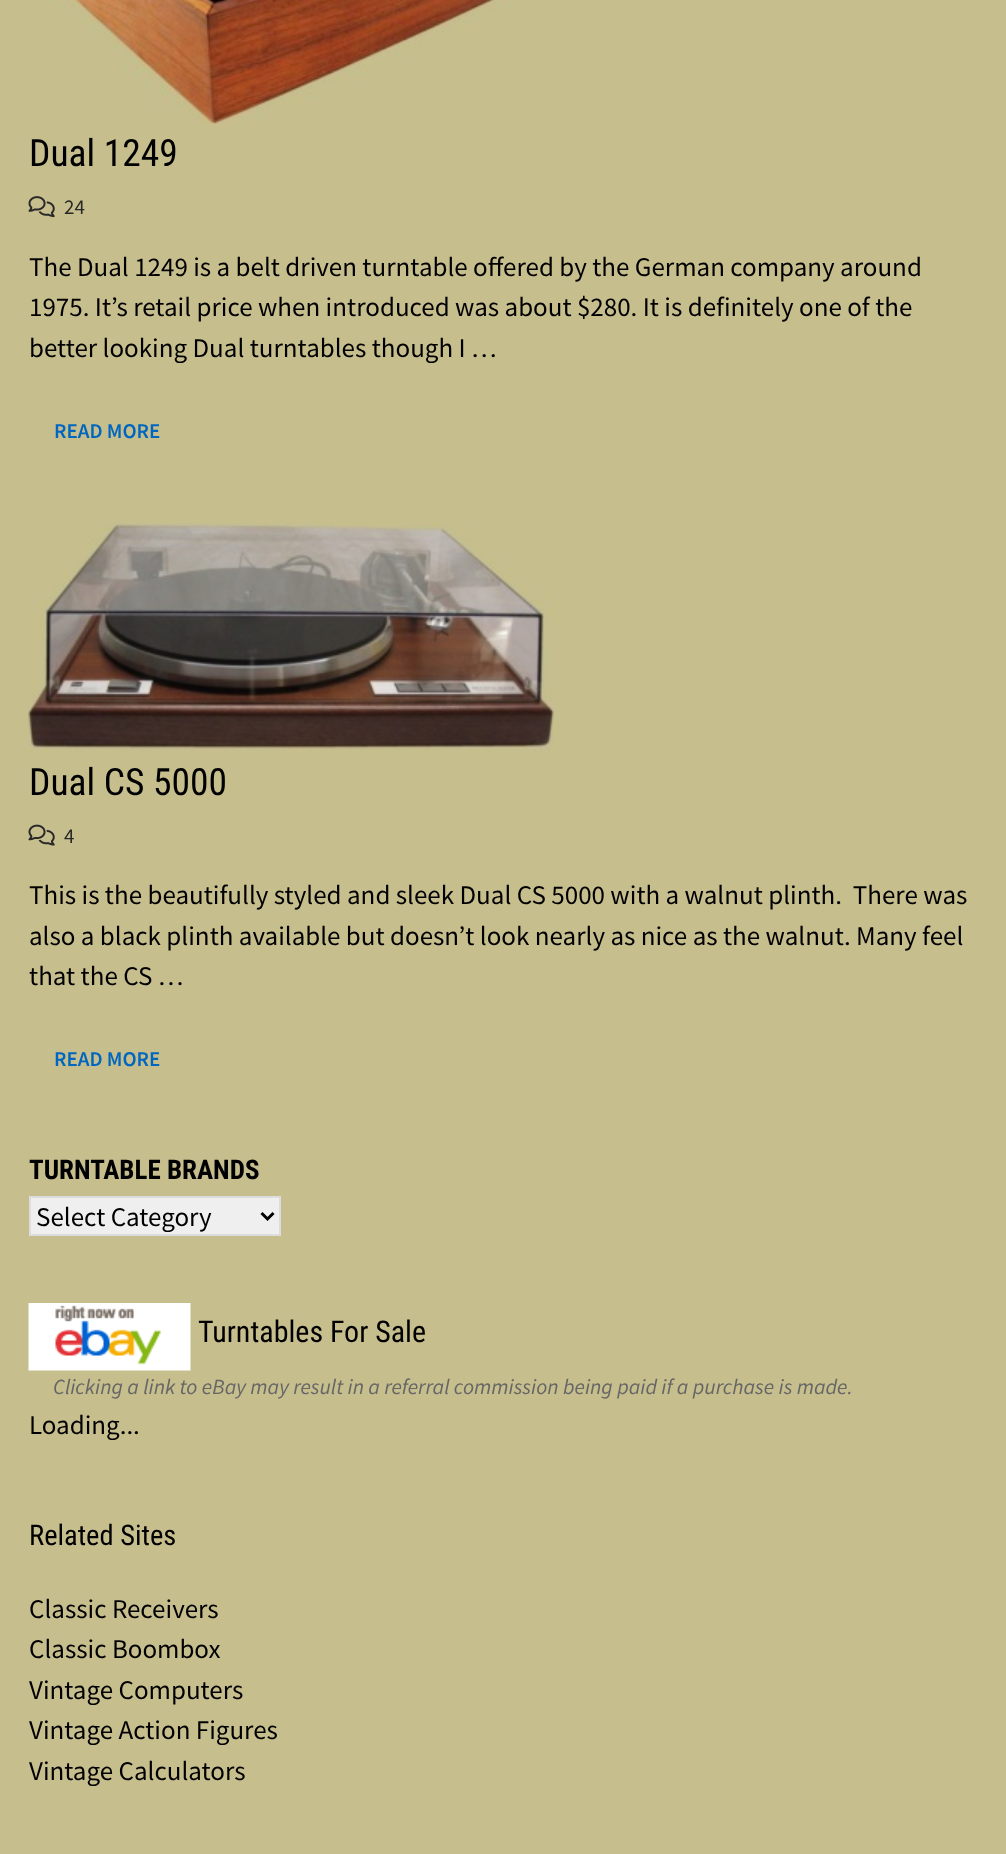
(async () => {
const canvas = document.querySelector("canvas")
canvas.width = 1006
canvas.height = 1854
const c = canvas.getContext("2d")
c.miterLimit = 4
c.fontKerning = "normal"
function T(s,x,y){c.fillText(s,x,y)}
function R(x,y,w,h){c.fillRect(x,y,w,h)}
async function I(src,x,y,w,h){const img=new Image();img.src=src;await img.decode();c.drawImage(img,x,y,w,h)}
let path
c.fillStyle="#c7be8d"
R(0,0,1006,1854)
await I("1.png",53,0,479,124)
c.font="37.5px Roboto Condensed"
c.fillStyle="#000"
T("Dual 1249",29,166)
await I("2.png",28,196,27,22)
c.font="21px Source Sans Pro"
c.fillStyle="#282828"
T("24",64,214)
c.font="27px Source Sans Pro"
c.fillStyle="#000"
T("The Dual 1249 is a belt driven turntable offered by the German company around",29,276)
T("1975. It’s retail price when introduced was about $280. It is definitely one of the",29,316)
T("better looking Dual turntables though I …",29,357)
c.font="600 21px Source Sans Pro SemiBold"
c.fillStyle="#0066bf"
T("READ MORE",54,438)
await I("3.png",28,523,526,228)
c.font="37.5px Roboto Condensed"
c.fillStyle="#000"
T("Dual CS 5000",29,795)
await I("4.png",28,824,27,22)
c.font="21px Source Sans Pro"
c.fillStyle="#282828"
T("4",64,843)
c.font="27px Source Sans Pro"
c.fillStyle="#000"
T("This is the beautifully styled and sleek Dual CS 5000 with a walnut plinth.  There was",29,904)
T("also a black plinth available but doesn’t look nearly as nice as the walnut. Many feel",29,945)
T("that the CS …",29,985)
c.font="600 21px Source Sans Pro SemiBold"
c.fillStyle="#0066bf"
T("READ MORE",54,1066)
c.font="bold 27px Roboto Condensed"
c.fillStyle="#000"
T("TURNTABLE BRANDS",29,1179)
c.fillStyle="#efefef"
c.beginPath()
c.rect(30,1197,250,38)
c.fill()
c.strokeStyle="#ddd"
c.lineWidth=2
c.stroke()
path = new Path2D("M261.5 1213l6 6l6-6")
c.strokeStyle="#000"
c.lineWidth=3
c.stroke(path)
c.font="27px Source Sans Pro"
c.fillStyle="#000"
T("Select Category",36,1226)
await I("5.png",28,1303,163,68)
c.font="30px Roboto Condensed"
T("Turntables For Sale",198,1342)
c.font="italic 21.6px Source Sans Pro"
c.fillStyle="#666"
T("Clicking a link to eBay may result in a referral commission being paid if a purchase is made.",53,1394)
c.font="27px Source Sans Pro"
c.fillStyle="#000"
T("Loading...",29,1434)
c.font="28.5px Roboto Condensed"
T("Related Sites",29,1545)
c.font="27px Source Sans Pro"
T("Classic Receivers",29,1618)
T("Classic Boombox",29,1658)
T("Vintage Computers",29,1699)
T("Vintage Action Figures",29,1739)
T("Vintage Calculators",29,1780)
})()
